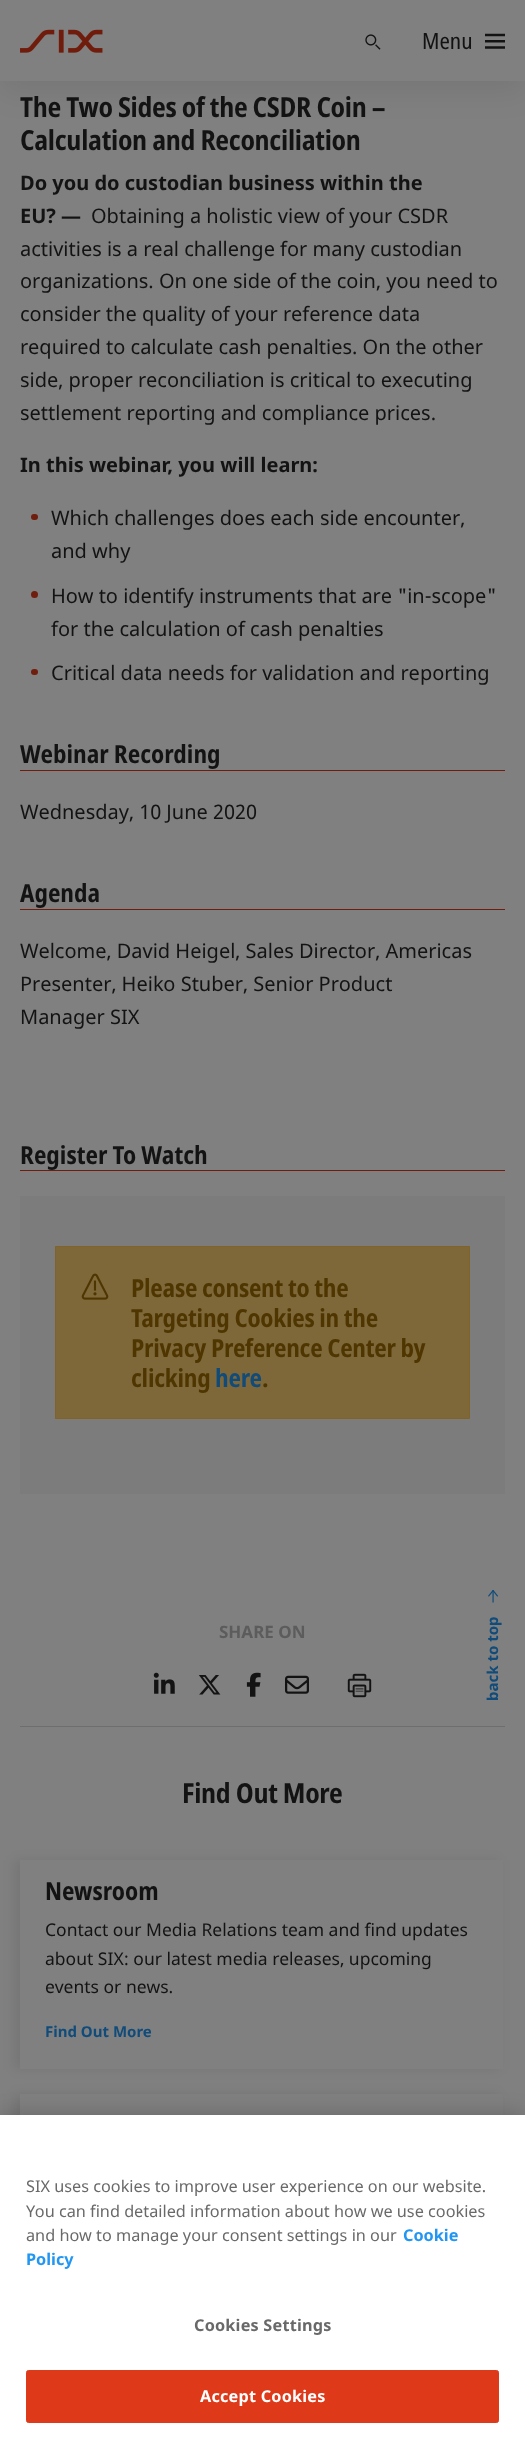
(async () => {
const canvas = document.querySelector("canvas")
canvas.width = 525
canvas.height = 2442
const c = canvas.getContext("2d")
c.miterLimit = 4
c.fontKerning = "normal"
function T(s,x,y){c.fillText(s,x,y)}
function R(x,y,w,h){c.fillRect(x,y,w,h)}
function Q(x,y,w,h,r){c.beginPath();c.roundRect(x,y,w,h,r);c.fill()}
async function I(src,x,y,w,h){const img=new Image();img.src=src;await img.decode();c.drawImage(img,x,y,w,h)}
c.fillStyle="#808080"
R(0,0,525,2442)
c.fillStyle="#00000014"
c.filter="blur(15.5px)"
c.beginPath()
c.rect(0,10,525,81)
c.fill()
c.filter="none"
c.fillStyle="#808080"
R(0,0,525,81)
await I("1.png",20,29,83,24)
await I("2.png",365,34,16,16)
c.font="22.5px 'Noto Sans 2'"
c.fillStyle="#131313"
T("Menu",422,49)
await I("3.png",485,33,20,16)
c.letterSpacing="-0.3px"
c.font="bold 27.5px Noto Sans"
T("The Two Sides of the CSDR Coin –",20,117)
T("Calculation and Reconciliation",20,150)
c.letterSpacing="0px"
c.font="bold 20px 'Noto Sans 2'"
T("Do you do custodian business within the",20,190)
T("EU? —",20,223)
c.font="20px Noto Sans"
T("Obtaining a holistic view of your CSDR",91,223)
T("activities is a real challenge for many custodian",20,256)
T("organizations. On one side of the coin, you need to",20,288)
T("consider the quality of your reference data",20,321)
T("required to calculate cash penalties. On the other",20,354)
T("side, proper reconciliation is critical to executing",20,387)
T("settlement reporting and compliance prices.",20,420)
c.font="bold 20px 'Noto Sans 2'"
T("In this webinar, you will learn:",20,472)
c.fillStyle="#6f1d0d"
Q(31,514,7,6,3)
c.font="20px Noto Sans"
c.fillStyle="#131313"
T("Which challenges does each side encounter,",51,525)
T("and why",51,558)
c.fillStyle="#6f1d0d"
c.beginPath()
c.arc(34.5,594.5,3.5,0,7)
c.fill()
c.fillStyle="#131313"
T("How to identify instruments that are \"in-scope\"",51,603)
T("for the calculation of cash penalties",51,636)
c.fillStyle="#6f1d0d"
Q(31,669,7,6,3)
c.fillStyle="#131313"
T("Critical data needs for validation and reporting",51,680)
c.fillStyle="#6f1d0d"
R(20,770,485,1)
c.font="bold 25px Noto Sans"
c.fillStyle="#131313"
T("Webinar Recording",20,763)
c.font="20px Noto Sans"
T("Wednesday, 10 June 2020",20,819)
c.fillStyle="#6f1d0d"
R(20,909,485,1)
c.font="bold 25px Noto Sans"
c.fillStyle="#131313"
T("Agenda",20,902)
c.font="20px Noto Sans"
T("Welcome, David Heigel, Sales Director, Americas",20,958)
T("Presenter, Heiko Stuber, Senior Product",20,991)
T("Manager SIX",20,1024)
c.fillStyle="#6f1d0d"
R(20,1170,485,1)
c.font="bold 25px Noto Sans"
c.fillStyle="#131313"
T("Register To Watch",20,1164)
c.fillStyle="#7c7c7c"
R(20,1196,485,298)
c.fillStyle="#7e683a"
c.beginPath()
c.rect(55.5,1246.5,414,172)
c.fill()
c.strokeStyle="#7f6329"
c.stroke()
await I("4.png",81,1273,28,27)
c.letterSpacing="-0.25px"
c.fillStyle="#4f3600"
T("Please consent to the",131,1297)
T("Targeting Cookies in the",131,1327)
T("Privacy Preference Center by",131,1357)
T("clicking",131,1387)
c.fillStyle="#114b7a"
T("here",215,1387)
c.fillStyle="#4f3600"
T(".",262,1387)
c.fillStyle="#6e6e6e"
R(20,1726,485,1)
c.letterSpacing="0px"
c.font="bold 17px 'Noto Sans 2'"
c.fillStyle="#5c5c5c"
T("SHARE ON",219,1638)
await I("5.png",153,1672,22,22)
await I("6.png",198,1675,23,20)
await I("7.png",246,1672,15,25)
await I("8.png",285,1675,24,19)
await I("9.png",347,1673,25,25)
await I("10.png",488,1590,11,13)
c.font="bold 15px 'Noto Sans 2'"
c.fillStyle="#114b7a"
c.save()
c.translate(498,1701)
c.rotate(-90 * Math.PI / 180)
c.fillText("back to top",0,0)
c.restore()
c.letterSpacing="-0.3px"
c.font="bold 27.5px Noto Sans"
c.fillStyle="#131313"
T("Find Out More",182,1803)
c.fillStyle="#00000014"
c.filter="blur(6px)"
c.beginPath()
c.rect(14,1860,485,209)
c.fill()
c.filter="none"
c.fillStyle="#808080"
R(20,1860,483,209)
c.letterSpacing="0px"
c.font="bold 25px Noto Sans"
c.fillStyle="#131313"
T("Newsroom",45,1900)
c.font="17.5px Noto Sans"
T("Contact our Media Relations team and find updates",45,1936)
T("about SIX: our latest media releases, upcoming",45,1965)
T("events or news.",45,1993)
c.font="bold 15px 'Noto Sans 2'"
c.fillStyle="#114b7a"
T("Find Out More",45,2037)
c.fillStyle="#00000014"
c.filter="blur(6px)"
c.beginPath()
c.rect(14,2094,485,181)
c.fill()
c.filter="none"
c.fillStyle="#808080"
R(20,2094,483,21)
c.fillStyle="#00000033"
c.filter="blur(11px)"
c.beginPath()
c.rect(0,2115,525,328)
c.fill()
c.filter="none"
c.fillStyle="#fff"
R(0,2115,525,327)
c.font="16.25px Noto Sans"
c.fillStyle="#696969"
T("SIX uses cookies to improve user experience on our website.",26,2192)
T("You can find detailed information about how we use cookies",26,2217)
T("and how to manage your consent settings in our",26,2241)
c.font="bold 16.25px 'Noto Sans 2'"
c.fillStyle="#2196f3"
T("Cookie",403,2241)
T("Policy",26,2265)
c.letterSpacing="0.2px"
c.fillStyle="#696969"
T("Cookies Settings",194,2331)
c.fillStyle="#de3919"
c.beginPath()
c.roundRect(26.5,2370.5,472,52,2)
c.fill()
c.strokeStyle="#de3919"
c.stroke()
c.fillStyle="#fff"
T("Accept Cookies",200,2402)
})()
